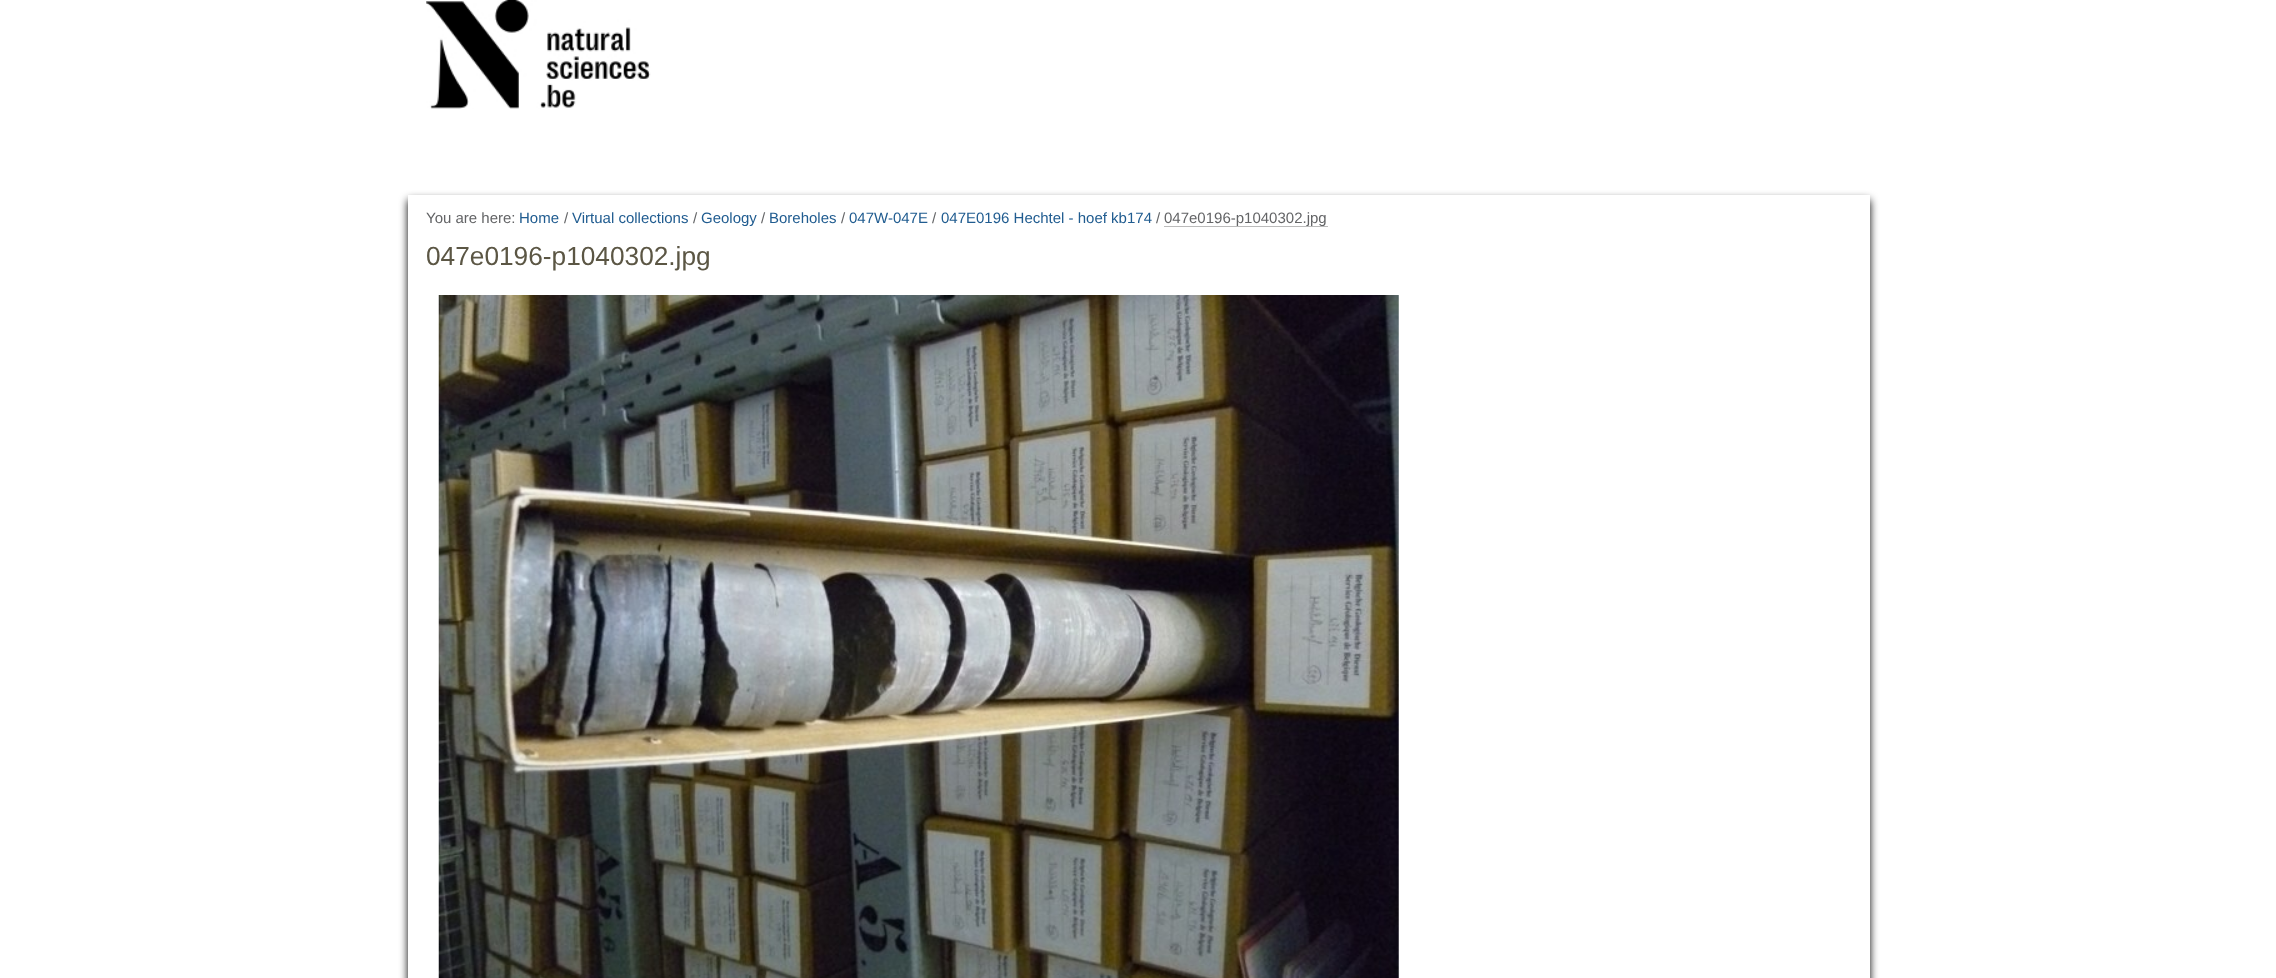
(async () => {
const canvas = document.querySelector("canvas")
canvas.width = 2276
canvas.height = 978
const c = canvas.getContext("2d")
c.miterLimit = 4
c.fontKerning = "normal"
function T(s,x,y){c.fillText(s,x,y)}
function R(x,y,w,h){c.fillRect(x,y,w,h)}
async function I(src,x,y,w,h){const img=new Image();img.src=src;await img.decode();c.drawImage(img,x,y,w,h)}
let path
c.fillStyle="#fff"
R(0,0,2276,978)
await I("1.png",426,0,225,109)
c.save()
path = new Path2D("M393 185h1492v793h-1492zm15 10h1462v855h-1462z")
c.clip(path,"evenodd")
c.fillStyle="#000"
c.filter="blur(4.5px)"
c.beginPath()
c.rect(408,200,1462,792)
c.fill()
c.filter="none"
c.restore()
c.font="15px Liberation Sans"
c.fillStyle="#636466"
T("You are here:",426,223)
c.fillStyle="#205c90"
T("Home",519,223)
c.fillStyle="#636466"
T("/",564,223)
c.fillStyle="#205c90"
T("Virtual collections",572,223)
c.fillStyle="#636466"
T("/",693,223)
c.fillStyle="#205c90"
T("Geology",701,223)
c.fillStyle="#636466"
T("/",761,223)
c.fillStyle="#205c90"
T("Boreholes",769,223)
c.fillStyle="#636466"
T("/",841,223)
c.fillStyle="#205c90"
T("047W-047E",849,223)
c.fillStyle="#636466"
T("/",932,223)
c.fillStyle="#205c90"
T("047E0196 Hechtel - hoef kb174",941,223)
c.fillStyle="#636466"
T("/",1156,223)
c.fillStyle="#bbb"
R(1164,226,164,1)
c.fillStyle="#636466"
T("047e0196-p1040302.jpg",1164,223)
c.font="26.25px Liberation Sans"
c.fillStyle="#5b5644"
T("047e0196-p1040302.jpg",426,265)
await I("2.png",438,295,961,683)
})()
